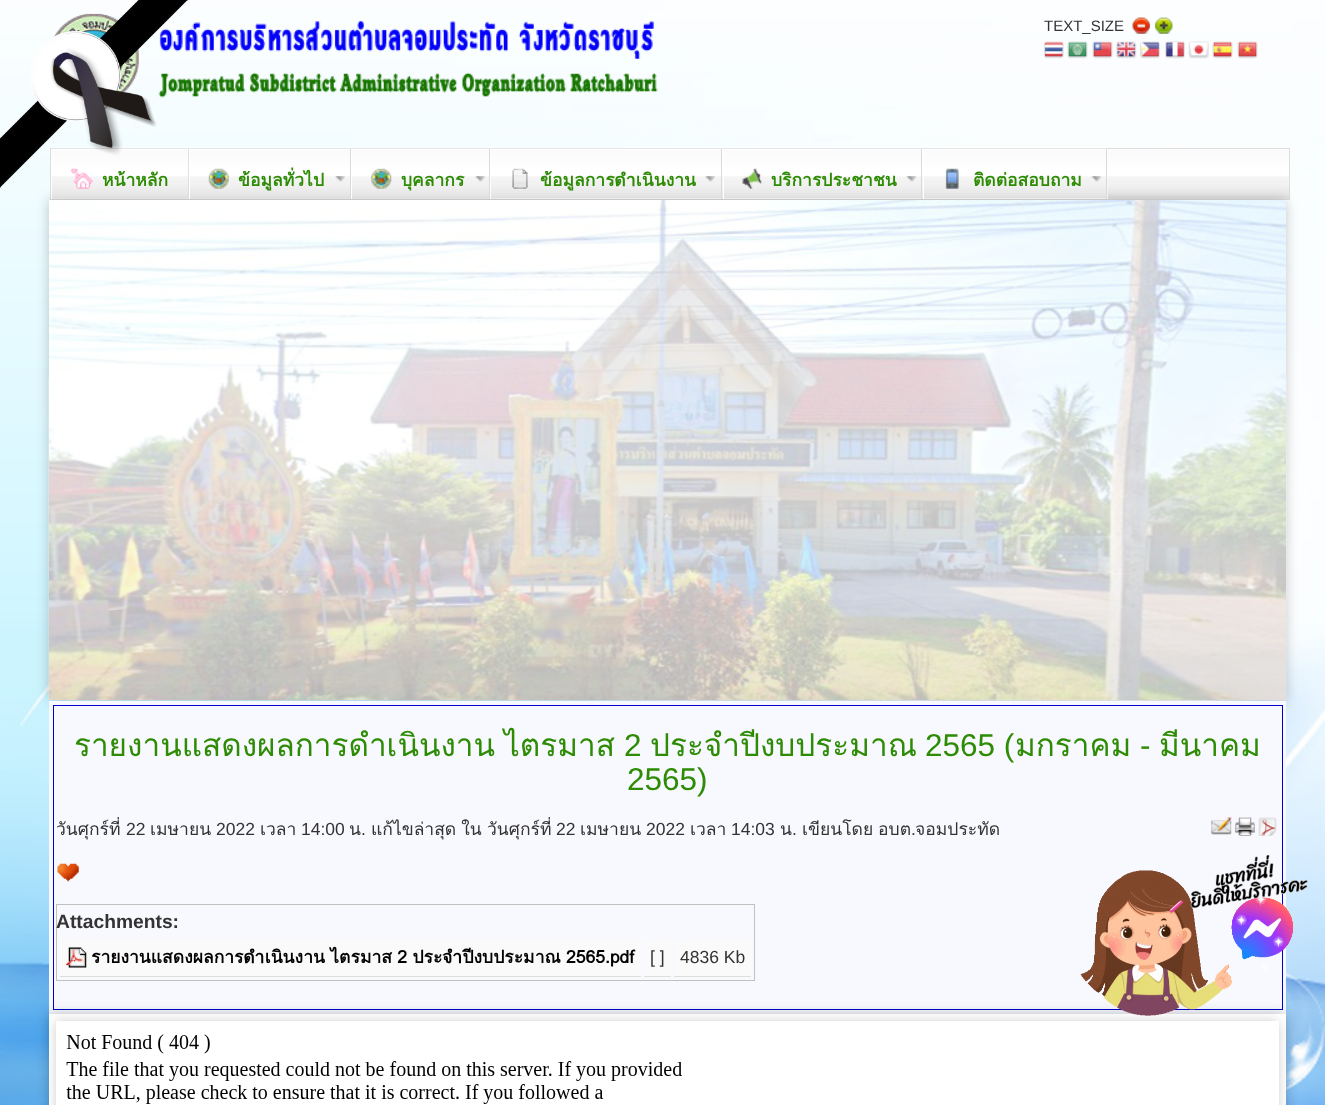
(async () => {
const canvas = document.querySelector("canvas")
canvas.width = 1325
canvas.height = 1105
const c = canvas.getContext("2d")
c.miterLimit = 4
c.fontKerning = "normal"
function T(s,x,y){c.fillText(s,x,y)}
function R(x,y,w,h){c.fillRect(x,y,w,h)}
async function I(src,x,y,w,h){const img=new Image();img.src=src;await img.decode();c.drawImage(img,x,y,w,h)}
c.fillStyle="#fff"
R(0,0,1325,1105)
await I("1.png",0,0,1325,1105)
await I("3.png",53,13,605,85)
await I("15.png",50,147,1240,52)
c.strokeStyle="#dcdcdd"
c.strokeRect(50.5,148.5,1239,51)
c.fillStyle="#0000001a"
c.filter="blur(5.5px)"
c.beginPath()
c.rect(46,198,1238,500)
c.fill()
c.filter="none"
c.filter="blur(5.5px)"
c.beginPath()
c.rect(51,203,1238,500)
c.fill()
c.filter="none"
await I("16.png",51,148,138,51)
c.fillStyle="#fff"
R(51,149,1,50)
await I("17.png",71,168,22,21)
c.font="bold 17.5px Loma"
c.fillStyle="#2d8c04"
T("หน้าหลัก",102,186)
await I("2.png",0,0,188,188)
c.font="15px Liberation Sans"
c.fillStyle="#333"
T("TEXT_SIZE",1044,31)
await I("4.png",1132,17,18,17)
await I("5.png",1155,17,18,17)
await I("6.png",1044,41,20,18)
await I("7.png",1067,41,21,18)
await I("8.png",1092,41,21,18)
await I("9.png",1116,41,21,18)
await I("10.png",1140,41,20,18)
await I("11.png",1165,41,20,18)
await I("12.png",1188,41,21,18)
await I("13.png",1212,41,21,18)
await I("14.png",1237,41,21,18)
c.fillStyle="#d9d9d9"
R(188,149,1,50)
await I("18.png",188,148,164,51)
R(350,149,1,50)
c.fillStyle="#fff"
R(189,149,1,50)
await I("19.png",335,176,10,6)
await I("20.png",208,168,21,21)
c.font="bold 17.5px Loma"
c.fillStyle="#2d8c04"
T("ข้อมูลทั่วไป",238,186)
await I("21.png",351,148,139,51)
c.fillStyle="#d9d9d9"
R(489,149,1,50)
c.fillStyle="#fff"
R(351,149,1,50)
await I("22.png",475,176,10,6)
await I("23.png",371,168,21,21)
c.fillStyle="#2d8c04"
T("บุคลากร",401,186)
c.fillStyle="#fff"
R(491,150,232,49)
await I("24.png",490,148,233,51)
c.fillStyle="#d9d9d9"
R(721,149,1,50)
c.fillStyle="#fff"
R(490,149,1,50)
await I("22.png",705,176,10,6)
await I("25.png",512,168,16,21)
c.fillStyle="#2d8c04"
T("ข้อมูลการดำเนินงาน",540,186)
c.fillStyle="#fff"
R(724,150,199,49)
await I("26.png",722,148,201,51)
c.fillStyle="#d9d9d9"
R(921,149,1,50)
c.fillStyle="#fff"
R(723,149,1,50)
await I("27.png",906,176,11,6)
await I("28.png",742,168,20,21)
c.fillStyle="#2d8c04"
T("บริการประชาชน",771,186)
c.fillStyle="#fff"
R(924,150,184,49)
await I("29.png",922,148,186,51)
c.fillStyle="#d9d9d9"
R(1106,149,1,50)
c.fillStyle="#fff"
R(923,149,1,50)
await I("27.png",1091,176,11,6)
await I("30.png",945,168,14,21)
c.fillStyle="#2d8c04"
T("ติดต่อสอบถาม",973,186)
c.fillStyle="#fff"
R(49,200,1237,178)
await I("31.png",48,377,1239,323)
await I("32.png",49,200,1237,500)
c.fillStyle="#f8f8ff"
R(49,701,1237,313)
c.strokeStyle="#0000cd"
c.strokeRect(53.5,705.5,1229,304)
c.font="31.5px Loma"
c.fillStyle="#2d8c04"
T("รายงานแสดงผลการดำเนินงาน",74,756)
T("ไตรมาส",504,756)
c.font="31.5px Liberation Sans"
T("2",624,756)
c.font="31.5px Loma"
T("ประจำปีงบประมาณ",650,756)
c.font="31.5px Liberation Sans"
T("2565 (",925,756)
c.font="31.5px Loma"
T("มกราคม",1015,756)
c.font="31.5px Liberation Sans"
T("-",1140,756)
c.font="31.5px Loma"
T("มีนาคม",1159,756)
c.font="31.5px Liberation Sans"
T("2565)",627,790)
c.save()
c.beginPath()
c.rect(54,706,1227,303)
c.clip()
c.font="17.5px Loma"
c.fillStyle="#333"
T("วันศุกร์ที่",56,835)
c.restore()
c.font="17.5px Liberation Sans"
c.fillStyle="#333"
T("22",126,835)
c.font="17.5px Loma"
T("เมษายน",150,835)
c.font="17.5px Liberation Sans"
T("2022",216,835)
c.font="17.5px Loma"
T("เวลา",260,835)
c.font="17.5px Liberation Sans"
T("14:00",301,835)
c.font="17.5px Loma"
T("น",349,835)
c.font="17.5px Liberation Sans"
T(".",361,835)
c.wordSpacing="-1px"
c.font="17.5px Loma"
T("แก้ไขล่าสุด ใน",371,835)
c.wordSpacing="0px"
T("วันศุกร์ที่",487,835)
c.font="17.5px Liberation Sans"
T("22",556,835)
c.font="17.5px Loma"
T("เมษายน",580,835)
c.font="17.5px Liberation Sans"
T("2022",646,835)
c.font="17.5px Loma"
T("เวลา",690,835)
c.font="17.5px Liberation Sans"
T("14:03",731,835)
c.font="17.5px Loma"
T("น",780,835)
c.font="17.5px Liberation Sans"
T(".",792,835)
c.wordSpacing="-1px"
c.font="17.5px Loma"
T("เขียนโดย อบต",802,835)
c.wordSpacing="0px"
c.font="17.5px Liberation Sans"
T(".",911,835)
c.font="17.5px Loma"
T("จอมประทัด",915,835)
await I("33.png",1211,817,21,18)
await I("34.png",1235,817,20,19)
await I("35.png",1258,817,19,19)
await I("36.png",57,863,22,19)
c.strokeStyle="#c0c0c0"
c.strokeRect(56.5,904.5,698,76)
c.font="bold 19.25px Liberation Sans"
T("Attachments:",56,928)
c.fillStyle="#fafafa"
R(60,939,581,39)
c.fillStyle="#ddd"
R(60,976,581,1)
await I("37.png",66,947,21,21)
c.wordSpacing="-0.5px"
c.font="bold 17.5px Loma"
c.fillStyle="#030000"
T("รายงานแสดงผลการดำเนินงาน ไตรมาส 2 ประจำปีงบประมาณ 2565.pdf",91,963)
c.fillStyle="#fafafa"
R(644,939,27,39)
c.fillStyle="#ddd"
R(644,976,27,1)
c.wordSpacing="0px"
c.font="17.5px Liberation Sans"
c.fillStyle="#333"
T("[ ]",650,963)
c.fillStyle="#fafafa"
R(674,939,77,39)
c.fillStyle="#ddd"
R(674,976,77,1)
c.fillStyle="#333"
T("4836 Kb",680,963)
c.fillStyle="#0000001a"
c.filter="blur(5.5px)"
c.beginPath()
c.rect(46,1011,1238,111)
c.fill()
c.filter="none"
c.filter="blur(5.5px)"
c.beginPath()
c.rect(51,1016,1238,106)
c.fill()
c.filter="none"
c.fillStyle="#fff"
R(49,1014,1237,91)
c.fillStyle="#0000001a"
c.filter="blur(5.5px)"
c.beginPath()
c.rect(54,1019,1222,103)
c.fill()
c.filter="none"
c.filter="blur(5.5px)"
c.beginPath()
c.rect(59,1024,1222,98)
c.fill()
c.filter="none"
c.fillStyle="#fff"
R(56,1021,1223,84)
await I("38.png",66,1034,616,70)
await I("39.png",1080,855,228,161)
})()
